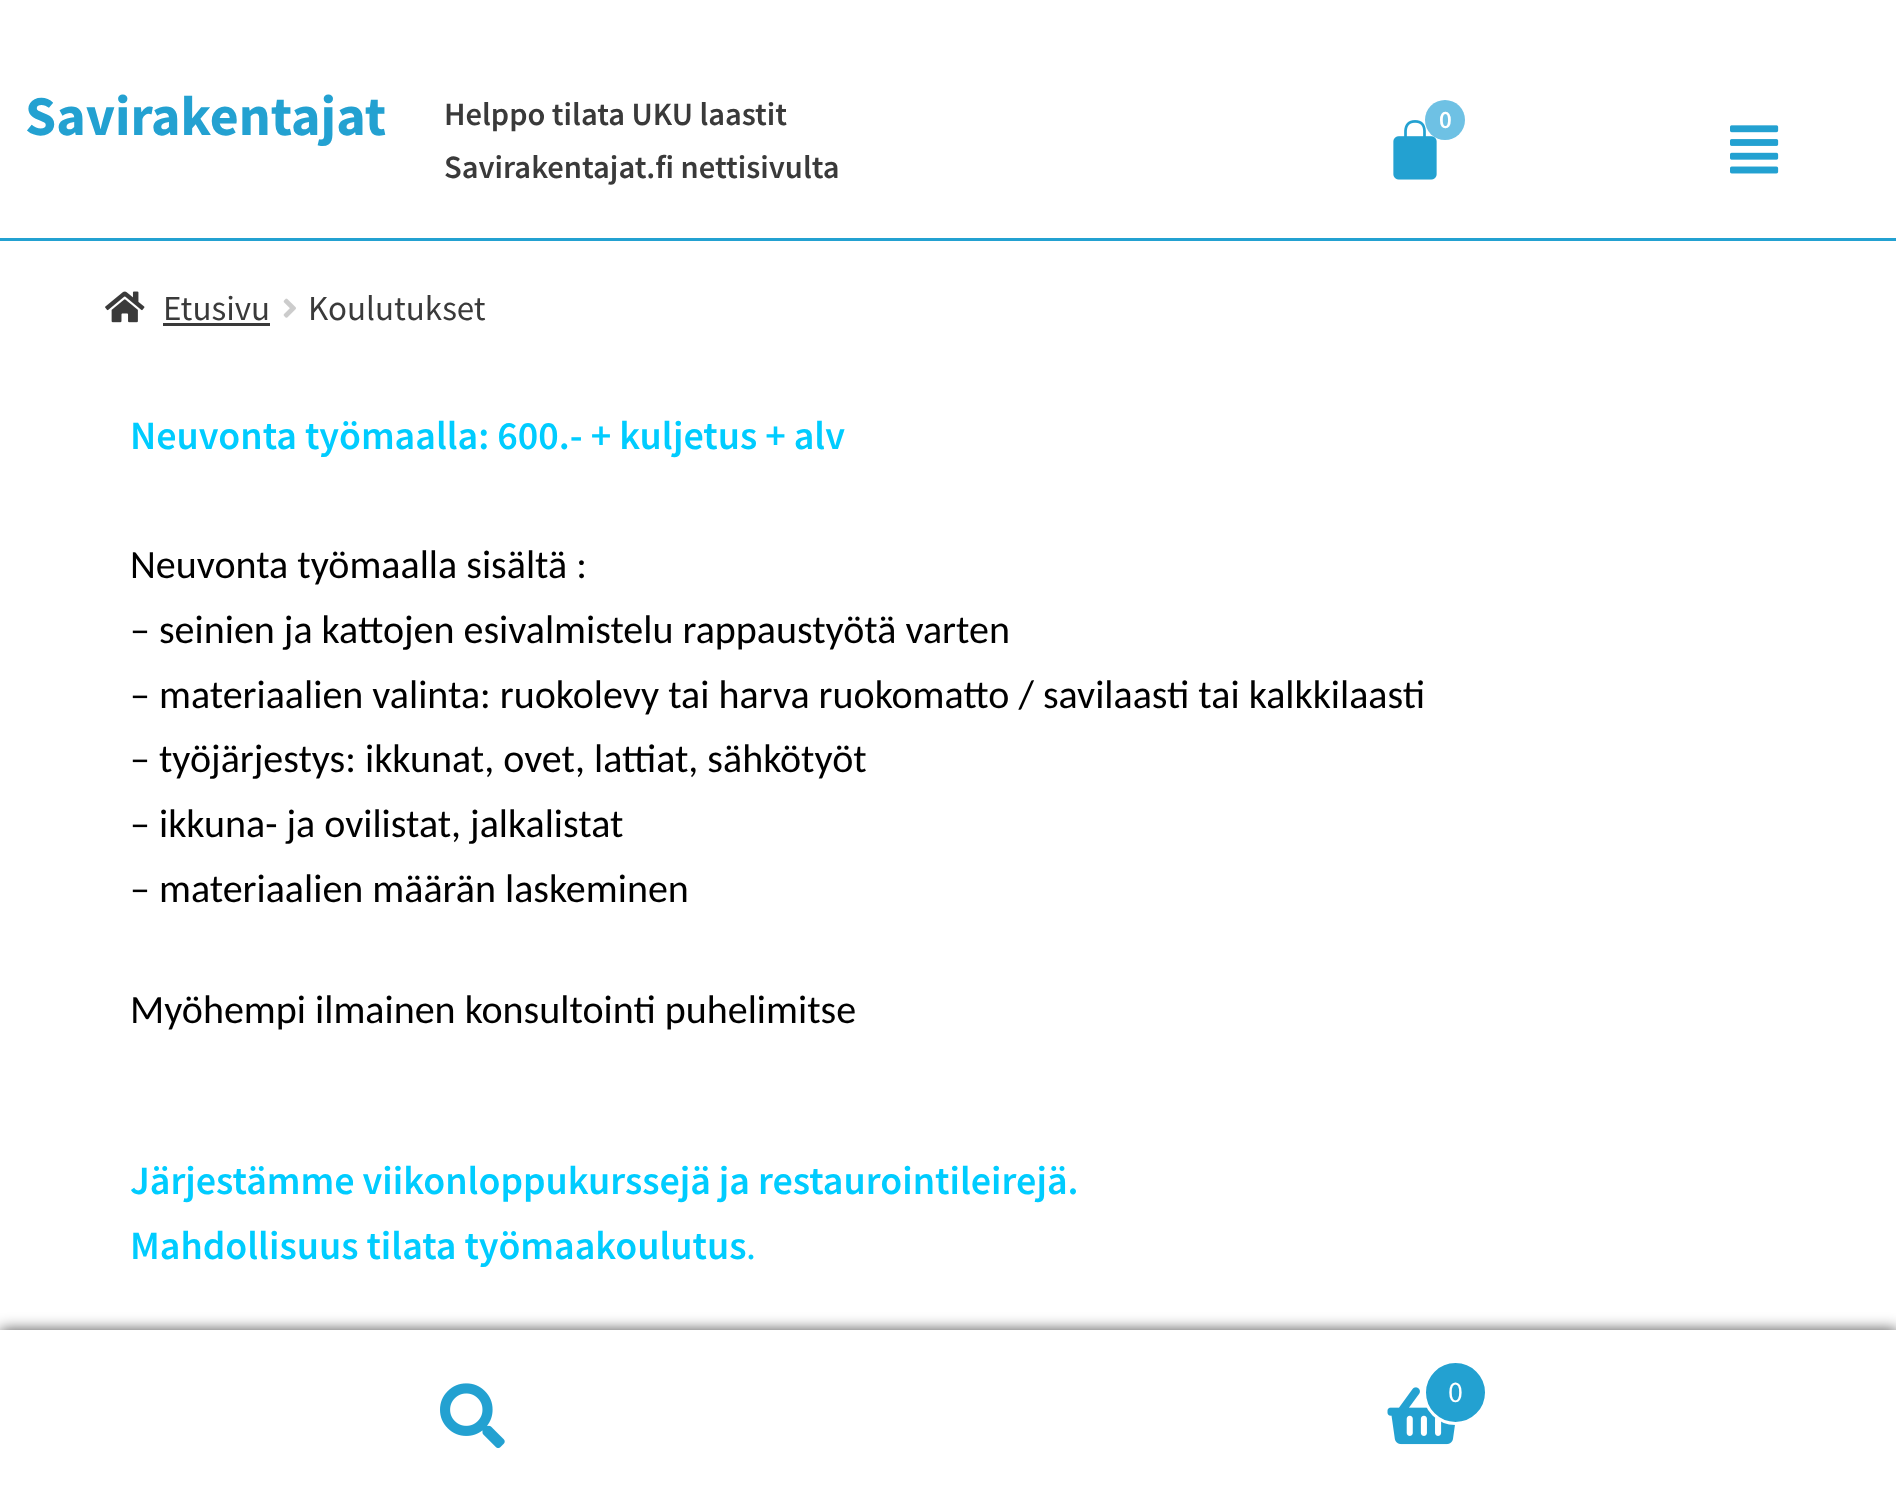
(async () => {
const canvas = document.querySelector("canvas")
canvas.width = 1896
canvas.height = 1501
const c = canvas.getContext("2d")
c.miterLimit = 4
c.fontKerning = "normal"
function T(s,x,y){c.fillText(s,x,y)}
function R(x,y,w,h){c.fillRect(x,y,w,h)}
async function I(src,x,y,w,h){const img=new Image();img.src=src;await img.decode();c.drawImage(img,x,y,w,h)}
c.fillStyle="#fff"
R(0,0,1896,1501)
c.fillStyle="#23a1d1"
R(0,238,1896,3)
c.font="bold 56px Source Sans Pro"
T("Savirakentajat",25,135)
c.font="600 32.5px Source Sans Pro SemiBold"
c.fillStyle="#3a3a3a"
T("Helppo tilata UKU laastit",444,125)
T("Savirakentajat.fi nettisivulta",444,178)
await I("1.png",1393,120,44,60)
c.fillStyle="#6ec1e4"
c.beginPath()
c.arc(1445,120,20,0,7)
c.fill()
c.font="600 25px Source Sans Pro SemiBold"
c.fillStyle="#fff"
T("0",1439,128)
await I("2.png",1730,125,49,49)
await I("3.png",105,291,40,32)
c.font="35px Source Sans Pro"
c.fillStyle="#3a3a3a"
T("Etusivu",163,320)
R(163,323,107,3)
await I("4.png",283,298,13,20)
T("Koulutukset",308,320)
c.font="600 40px Source Sans Pro SemiBold"
c.fillStyle="#0cf"
T("Neuvonta työmaalla: 600.- + kuljetus + alv",130,449)
c.font="40px Carlito"
c.fillStyle="#000"
T("Neuvonta työmaalla sisältä :",130,578)
T("– seinien ja kattojen esivalmistelu rappaustyötä varten",130,643)
T("– materiaalien valinta: ruokolevy tai harva ruokomatto / savilaasti tai kalkkilaasti",130,708)
T("– työjärjestys: ikkunat, ovet, lattiat, sähkötyöt",130,772)
T("– ikkuna- ja ovilistat, jalkalistat",130,837)
T("– materiaalien määrän laskeminen",130,902)
T("Myöhempi ilmainen konsultointi puhelimitse",130,1023)
c.font="600 40px Source Sans Pro SemiBold"
c.fillStyle="#0cf"
T("Järjestämme viikonloppukurssejä ja restaurointileirejä.",130,1194)
T("Mahdollisuus tilata työmaakoulutus",130,1259)
c.font="40px Source Sans Pro"
T(".",746,1259)
c.fillStyle="#000000b3"
c.filter="blur(7.5px)"
c.beginPath()
c.rect(0,1330,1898,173)
c.fill()
c.filter="none"
c.fillStyle="#fff"
R(0,1330,1896,3)
R(0,1333,1896,168)
await I("5.png",440,1383,65,66)
await I("6.png",1387,1387,68,58)
c.fillStyle="#23a1d1"
c.beginPath()
c.arc(1455.5,1392.5,31,0,7)
c.fill()
c.strokeStyle="#fff"
c.lineWidth=3
c.stroke()
c.font="30px Source Sans Pro"
c.fillStyle="#fff"
T("0",1448,1402)
})()
